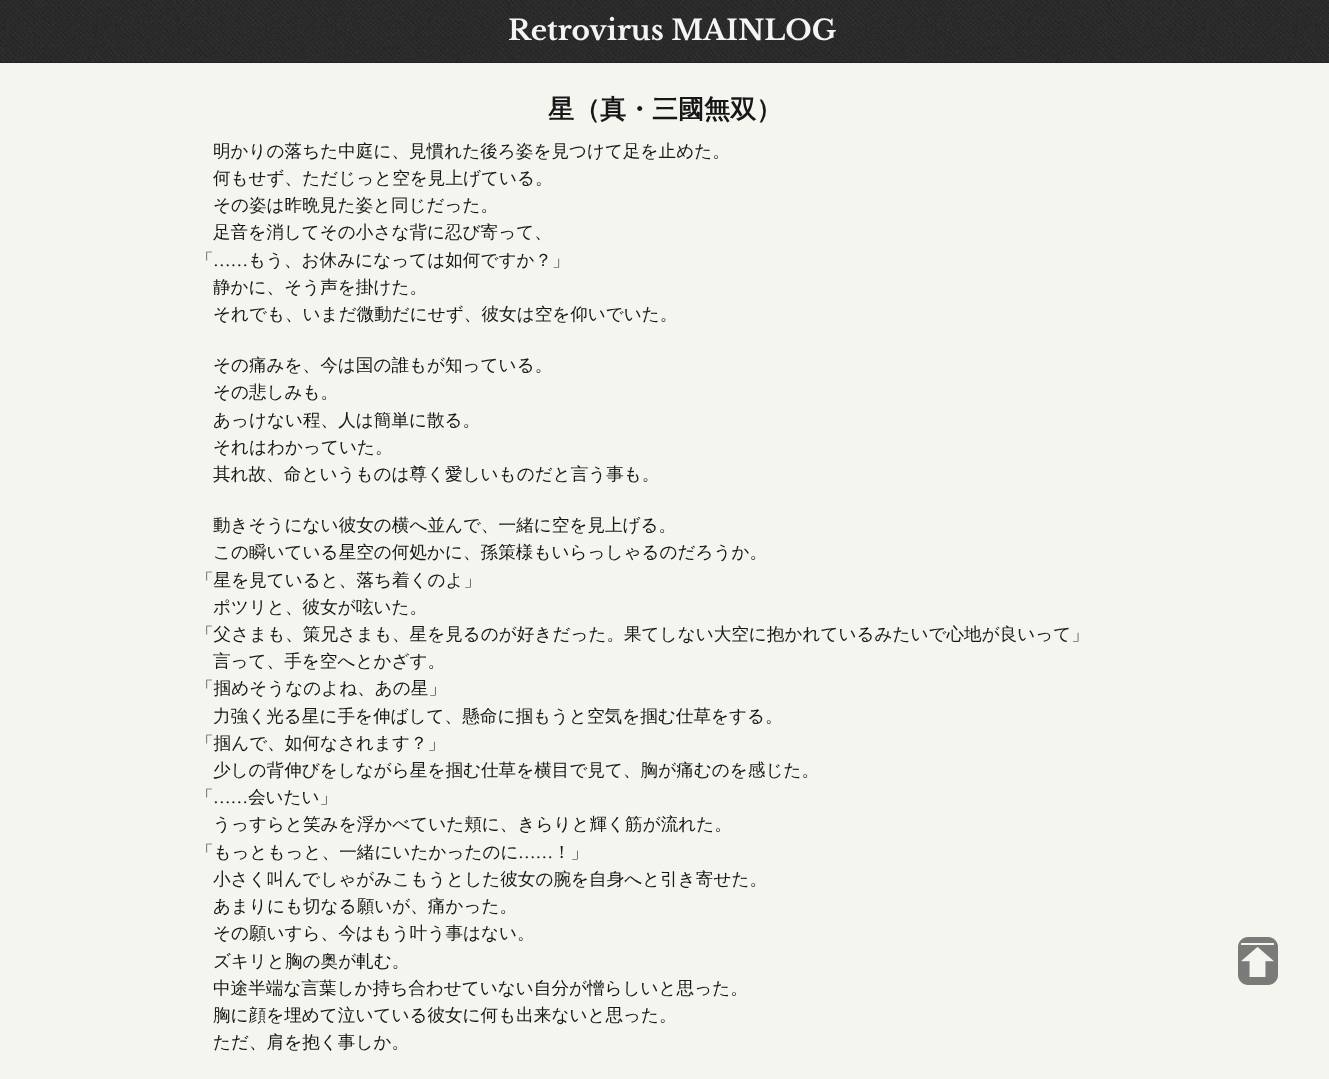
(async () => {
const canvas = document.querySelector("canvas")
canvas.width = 1329
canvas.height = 1079
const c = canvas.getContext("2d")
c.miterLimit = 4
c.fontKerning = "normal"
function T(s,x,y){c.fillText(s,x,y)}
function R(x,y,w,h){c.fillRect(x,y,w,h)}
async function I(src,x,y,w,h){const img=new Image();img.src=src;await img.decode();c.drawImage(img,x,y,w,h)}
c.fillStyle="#f5f5f0"
R(0,0,1329,1079)
await I("1.png",0,0,1329,62)
c.fillStyle="#222"
R(0,62,1329,1)
c.font="bold 28px Libre Baskerville"
c.fillStyle="#f4f4f4"
T("Retrovirus MAINLOG",508,40)
c.font="bold 26px WenQuanYi Zen Hei"
c.fillStyle="#171717"
T("星（真・三國無双）",548,118)
c.font="500 17.6px WenQuanYi Zen Hei"
T("明かりの落ちた中庭に、見慣れた後ろ姿を見つけて足を止めた。",213,157)
T("何もせず、ただじっと空を見上げている。",213,184)
T("その姿は昨晩見た姿と同じだった。",213,211)
T("足音を消してその小さな背に忍び寄って、",213,238)
T("「",196,266)
c.font="17.6px Liberation Serif"
T("……",213,266)
c.font="500 17.6px WenQuanYi Zen Hei"
T("もう、お休みになっては如何ですか？」",248,266)
T("静かに、そう声を掛けた。",213,293)
T("それでも、いまだ微動だにせず、彼女は空を仰いでいた。",213,320)
T("その痛みを、今は国の誰もが知っている。",213,371)
T("その悲しみも。",213,398)
T("あっけない程、人は簡単に散る。",213,426)
T("それはわかっていた。",213,453)
T("其れ故、命というものは尊く愛しいものだと言う事も。",213,480)
T("動きそうにない彼女の横へ並んで、一緒に空を見上げる。",213,531)
T("この瞬いている星空の何処かに、孫策様もいらっしゃるのだろうか。",213,558)
T("「星を見ていると、落ち着くのよ」",196,586)
T("ポツリと、彼女が呟いた。",213,613)
T("「父さまも、策兄さまも、星を見るのが好きだった。果てしない大空に抱かれているみたいで心地が良いって」",196,640)
T("言って、手を空へとかざす。",213,667)
T("「掴めそうなのよね、あの星」",196,694)
T("力強く光る星に手を伸ばして、懸命に掴もうと空気を掴む仕草をする。",213,722)
T("「掴んで、如何なされます？」",196,749)
T("少しの背伸びをしながら星を掴む仕草を横目で見て、胸が痛むのを感じた。",213,776)
T("「",196,803)
c.font="17.6px Liberation Serif"
T("……",213,803)
c.font="500 17.6px WenQuanYi Zen Hei"
T("会いたい」",248,803)
T("うっすらと笑みを浮かべていた頬に、きらりと輝く筋が流れた。",213,830)
T("「もっともっと、一緒にいたかったのに",196,858)
c.font="17.6px Liberation Serif"
T("……",518,858)
c.font="500 17.6px WenQuanYi Zen Hei"
T("！」",553,858)
T("小さく叫んでしゃがみこもうとした彼女の腕を自身へと引き寄せた。",213,885)
T("あまりにも切なる願いが、痛かった。",213,912)
T("その願いすら、今はもう叶う事はない。",213,939)
T("ズキリと胸の奥が軋む。",213,967)
T("中途半端な言葉しか持ち合わせていない自分が憎らしいと思った。",213,994)
T("胸に顔を埋めて泣いている彼女に何も出来ないと思った。",213,1021)
T("ただ、肩を抱く事しか。",213,1048)
await I("2.png",1238,937,40,48)
})()
